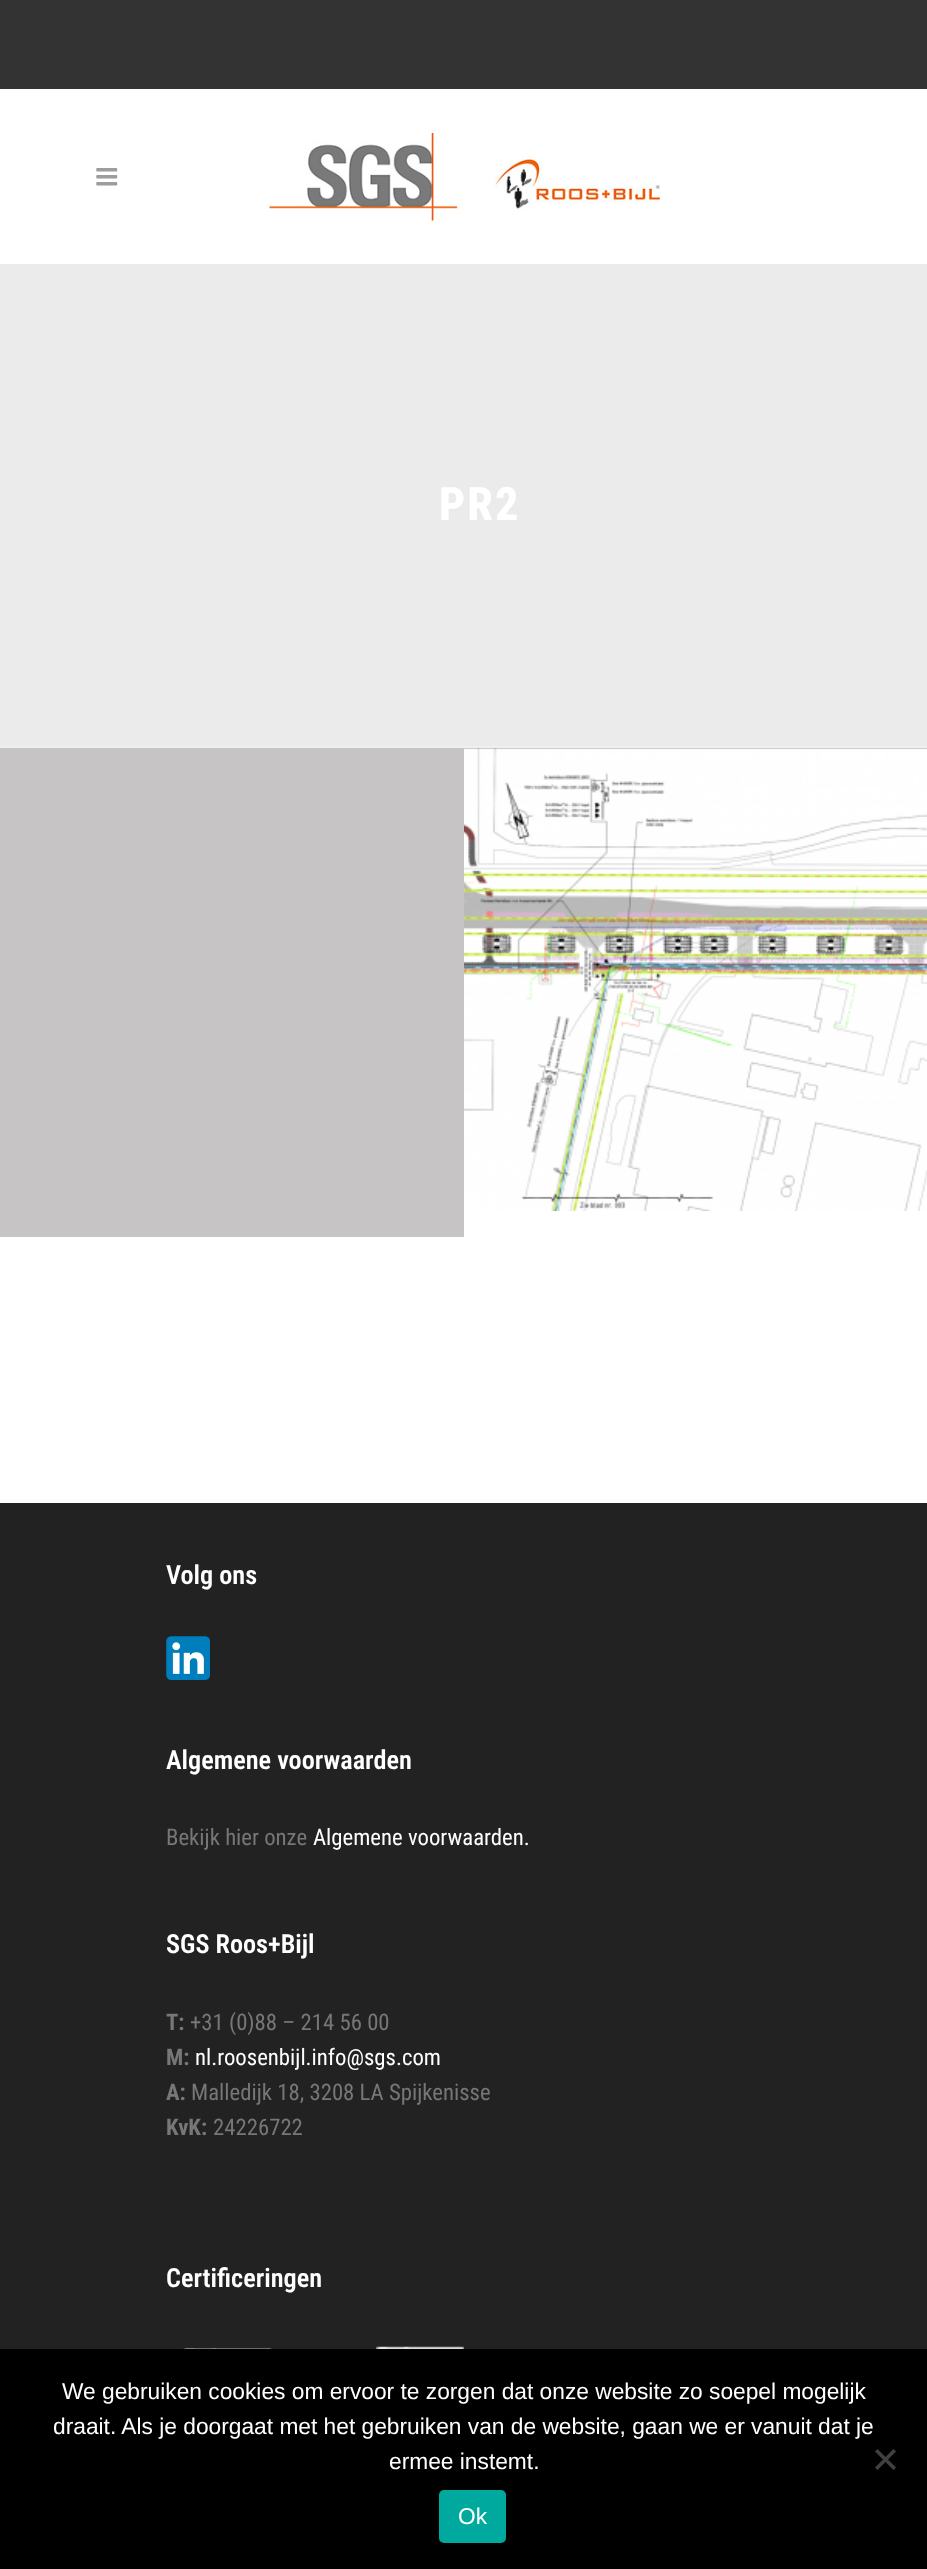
(async () => {
const canvas = document.querySelector("canvas")
canvas.width = 927
canvas.height = 2569
const c = canvas.getContext("2d")
c.miterLimit = 4
c.fontKerning = "normal"
function T(s,x,y){c.fillText(s,x,y)}
function R(x,y,w,h){c.fillRect(x,y,w,h)}
function Q(x,y,w,h,r){c.beginPath();c.roundRect(x,y,w,h,r);c.fill()}
async function I(src,x,y,w,h){const img=new Image();img.src=src;await img.decode();c.drawImage(img,x,y,w,h)}
let path
c.fillStyle="#fff"
R(0,0,927,2569)
c.fillStyle="#333"
R(0,0,927,89)
await I("1.png",96,168,22,18)
await I("2.png",269,133,391,88)
c.fillStyle="#efefef"
R(0,746,927,2)
c.fillStyle="#ebebeb"
R(0,264,927,482)
c.letterSpacing="2px"
c.font="800 46px Roboto Condensed"
c.fillStyle="#fff"
T("PR2",439,520)
c.fillStyle="#c6c4c4"
R(0,748,464,489)
await I("3.png",464,748,463,463)
c.fillStyle="#222"
R(0,1503,927,846)
c.letterSpacing="0px"
c.font="600 26.25px Roboto Condensed"
c.fillStyle="#fff"
T("Volg ons",166,1584)
await I("4.png",166,1636,44,44)
T("Algemene voorwaarden",166,1769)
c.font="22.75px Roboto Condensed"
c.fillStyle="#777"
T("Bekijk hier onze",166,1845)
c.fillStyle="#fff"
T("Algemene voorwaarden.",313,1845)
c.font="600 26.25px Roboto Condensed"
T("SGS Roos+Bijl",166,1953)
c.font="bold 22.75px Roboto Condensed"
c.fillStyle="#777"
T("T:",166,2030)
c.font="22.75px Roboto Condensed"
T("+31 (0)88 – 214 56 00",190,2030)
c.font="bold 22.75px Roboto Condensed"
T("M:",166,2065)
c.font="22.75px Roboto Condensed"
c.fillStyle="#fff"
T("nl.roosenbijl.info@sgs.com",195,2065)
c.font="bold 22.75px Roboto Condensed"
c.fillStyle="#777"
T("A:",166,2100)
c.font="22.75px Roboto Condensed"
T("Malledijk 18, 3208 LA Spijkenisse",191,2100)
c.font="bold 22.75px Roboto Condensed"
T("KvK:",166,2135)
c.font="22.75px Roboto Condensed"
T("24226722",213,2135)
c.font="600 26.25px Roboto Condensed"
c.fillStyle="#fff"
T("Certificeringen",166,2287)
await I("5.png",183,2348,89,1)
await I("6.png",376,2346,88,3)
c.fillStyle="#000"
R(0,2349,927,220)
c.font="22.75px Liberation Sans"
c.fillStyle="#fff"
T("We gebruiken cookies om ervoor te zorgen dat onze website zo soepel mogelijk",62,2399)
T("draait. Als je doorgaat met het gebruiken van de website, gaan we er vanuit dat je",53,2434)
T("ermee instemt.",389,2469)
c.fillStyle="#404040"
path = new Path2D("M893.5 2449l2.5 2.5l-18.5 18.5l-2.5-2.5z")
c.fill(path)
path = new Path2D("M875 2451.5l2.5-2.5l18.5 18.5l-2.5 2.5z")
c.fill(path)
c.fillStyle="#00a99d"
Q(439,2490,67,53,5)
c.fillStyle="#fff"
T("Ok",458,2524)
})()
